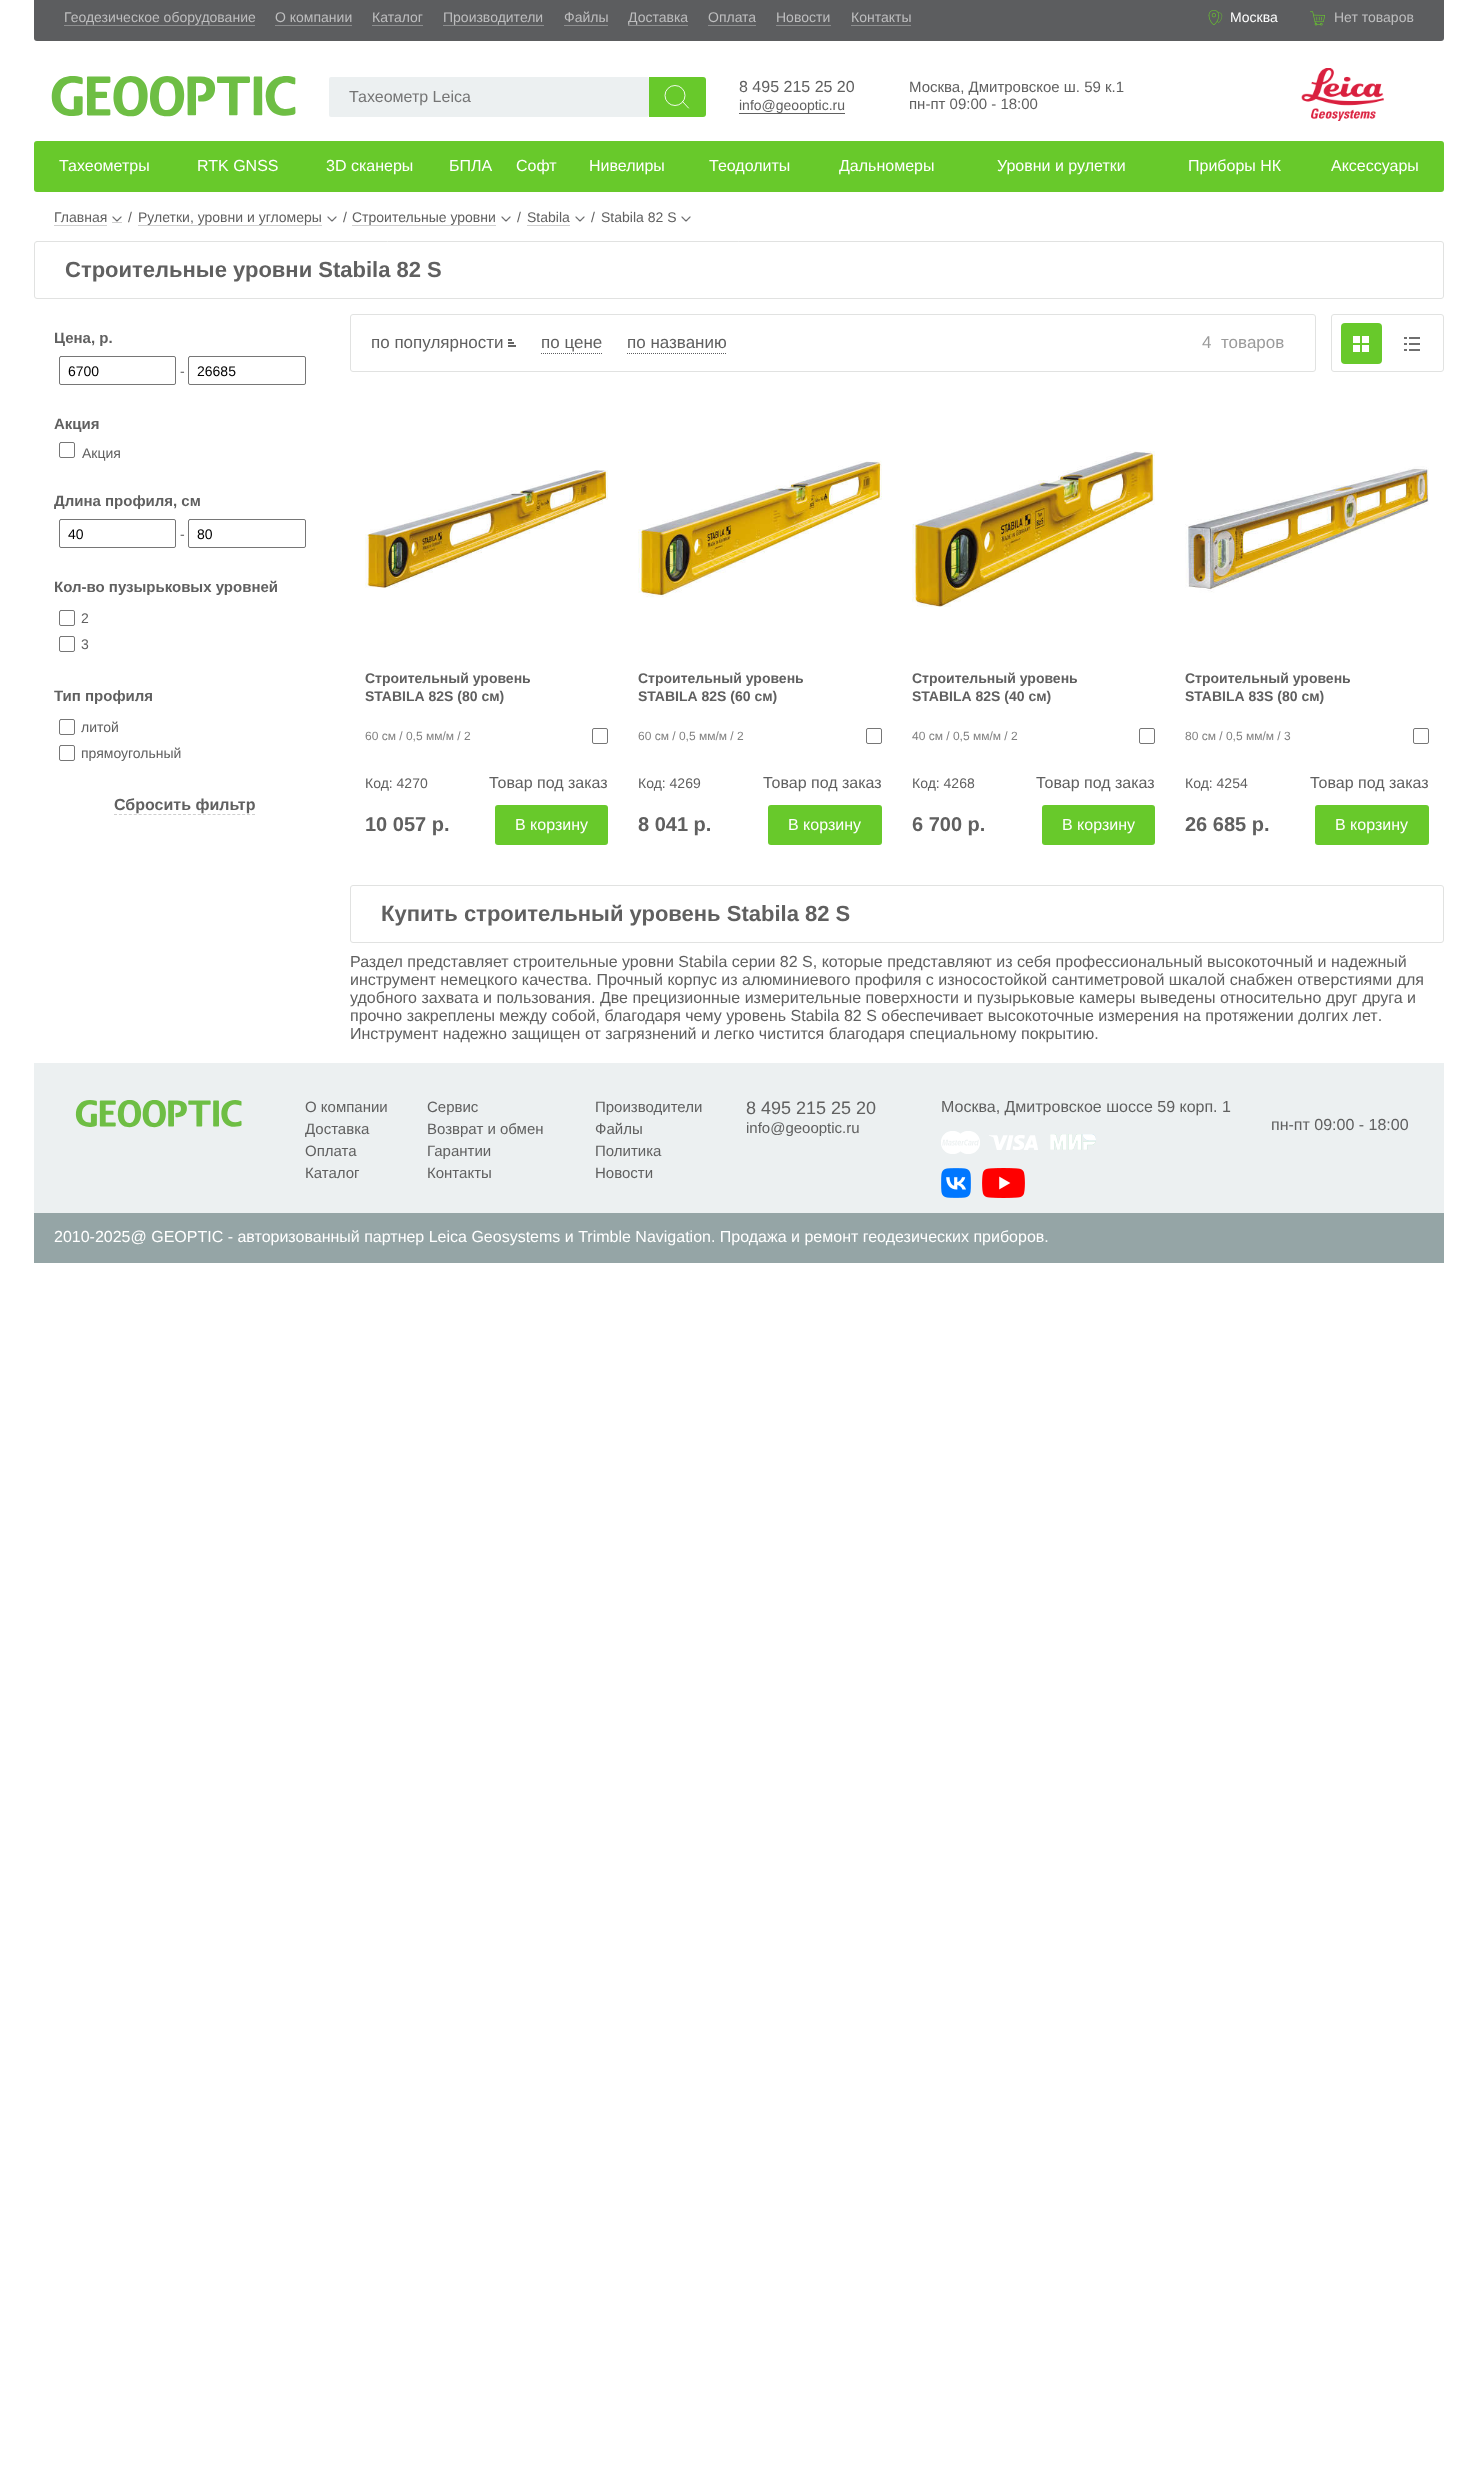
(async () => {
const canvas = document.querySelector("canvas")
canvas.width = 1477
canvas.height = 2475
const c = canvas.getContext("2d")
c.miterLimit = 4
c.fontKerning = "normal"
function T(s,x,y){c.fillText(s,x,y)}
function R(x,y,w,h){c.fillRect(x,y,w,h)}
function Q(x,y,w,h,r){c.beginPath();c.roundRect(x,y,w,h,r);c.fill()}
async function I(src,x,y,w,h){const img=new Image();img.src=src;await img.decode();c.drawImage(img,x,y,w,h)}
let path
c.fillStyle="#fff"
R(0,0,1477,2475)
c.fillStyle="#5c5d5f"
c.beginPath()
c.roundRect(34,0,1410,41,[0,0,3,3])
c.fill()
c.font="14px Arimo"
c.fillStyle="#bebebf"
T("Геодезическое оборудование",64,22)
c.fillStyle="#8d8e8f"
R(64,25,191,1)
c.fillStyle="#bebebf"
T("О компании",275,22)
c.fillStyle="#8d8e8f"
R(275,25,77,1)
c.fillStyle="#bebebf"
T("Каталог",372,22)
c.fillStyle="#8d8e8f"
R(372,25,51,1)
c.fillStyle="#bebebf"
T("Производители",443,22)
c.fillStyle="#8d8e8f"
R(443,25,101,1)
c.fillStyle="#bebebf"
T("Файлы",564,22)
c.fillStyle="#8d8e8f"
R(564,25,44,1)
c.fillStyle="#bebebf"
T("Доставка",628,22)
c.fillStyle="#8d8e8f"
R(628,25,60,1)
c.fillStyle="#bebebf"
T("Оплата",708,22)
c.fillStyle="#8d8e8f"
R(708,25,48,1)
c.fillStyle="#bebebf"
T("Новости",776,22)
c.fillStyle="#8d8e8f"
R(776,25,55,1)
c.fillStyle="#bebebf"
T("Контакты",851,22)
c.fillStyle="#8d8e8f"
R(851,25,60,1)
await I("1.png",1208,10,15,15)
c.fillStyle="#fff"
T("Москва",1230,22)
await I("2.png",1310,11,15,15)
c.fillStyle="#bebebf"
T("Нет товаров",1334,22)
await I("3.png",51,76,245,41)
c.fillStyle="#ecf0f1"
Q(329,77,320,40,2)
c.font="16px Liberation Sans"
c.fillStyle="#757575"
T("Тахеометр Leica",349,102)
c.fillStyle="#68c92b"
c.beginPath()
c.roundRect(649,77,57,40,[0,3,3,0])
c.fill()
c.beginPath()
c.arc(675,95.5,10,0,7)
c.strokeStyle="#fff"
c.lineWidth=0.9
c.stroke()
path = new Path2D("M682.5 101.5l6 6.5")
c.lineCap="round"
c.stroke(path)
c.font="16px Arimo"
c.fillStyle="#606060"
T("8 495 215 25 20",739,92)
c.font="14px Arimo"
T("info@geooptic.ru",739,110)
R(739,113,106,1)
c.font="15px Arimo"
T("Москва, Дмитровское ш. 59 к.1",909,92)
T("пн-пт 09:00 - 18:00",909,109)
await I("4.png",1301,68,83,53)
c.fillStyle="#68c92b"
Q(34,141,1410,51,3)
c.font="16px Arimo"
c.fillStyle="#fff"
T("Тахеометры",59,171)
T("RTK GNSS",197,171)
T("3D сканеры",326,171)
T("БПЛА",449,171)
T("Софт",516,171)
T("Нивелиры",589,171)
T("Теодолиты",709,171)
T("Дальномеры",839,171)
T("Уровни и рулетки",997,171)
T("Приборы НК",1188,171)
T("Аксессуары",1331,171)
c.fillStyle="#cfcfcf"
R(54,225,53,1)
R(112,222,10,1)
c.font="14px Arimo"
c.fillStyle="#606060"
T("Главная",54,222)
await I("5.png",112,216,10,6)
T("/",128,222)
T("Рулетки, уровни и угломеры",138,222)
c.fillStyle="#cfcfcf"
R(138,225,184,1)
await I("5.png",327,216,10,6)
c.fillStyle="#606060"
T("/",343,222)
T("Строительные уровни",352,222)
c.fillStyle="#cfcfcf"
R(352,225,144,1)
await I("5.png",501,216,10,6)
c.fillStyle="#606060"
T("/",517,222)
T("Stabila",527,222)
c.fillStyle="#cfcfcf"
R(527,225,43,1)
await I("5.png",575,216,10,6)
c.fillStyle="#606060"
T("/",591,222)
T("Stabila 82 S",601,222)
await I("5.png",681,216,10,6)
c.beginPath()
c.roundRect(34.5,241.5,1409,57,2.5)
c.strokeStyle="#e1e2e1"
c.lineWidth=1
c.stroke()
c.font="bold 22px Arimo"
T("Строительные уровни Stabila 82 S",65,277)
c.font="bold 15px Arimo"
T("Цена, р.",54,343)
c.beginPath()
c.roundRect(59.5,356.5,116,28,1.5)
c.strokeStyle="#767676"
c.stroke()
c.font="14px Liberation Sans"
c.fillStyle="#000"
T("6700",68,376)
c.font="14px Arimo"
c.fillStyle="#606060"
T("-",180,376)
c.beginPath()
c.roundRect(188.5,356.5,117,28,1.5)
c.stroke()
c.font="14px Liberation Sans"
c.fillStyle="#000"
T("26685",197,376)
c.font="bold 15px Arimo"
c.fillStyle="#606060"
T("Акция",54,429)
c.beginPath()
c.roundRect(59.5,442.5,15,15,1.5)
c.stroke()
c.font="14px Arimo"
T("Акция",82,458)
c.font="bold 15px Arimo"
T("Длина профиля, см",54,506)
c.beginPath()
c.roundRect(59.5,519.5,116,28,1.5)
c.stroke()
c.font="14px Liberation Sans"
c.fillStyle="#000"
T("40",68,539)
c.font="14px Arimo"
c.fillStyle="#606060"
T("-",180,539)
c.beginPath()
c.roundRect(188.5,519.5,117,28,1.5)
c.stroke()
c.font="14px Liberation Sans"
c.fillStyle="#000"
T("80",197,539)
c.font="bold 15px Arimo"
c.fillStyle="#606060"
T("Кол-во пузырьковых уровней",54,592)
c.beginPath()
c.roundRect(59.5,610.5,15,15,1.5)
c.stroke()
c.font="14px Arimo"
T("2",81,623)
c.beginPath()
c.roundRect(59.5,636.5,15,15,1.5)
c.stroke()
T("3",81,649)
c.font="bold 15px Arimo"
T("Тип профиля",54,701)
c.beginPath()
c.roundRect(59.5,719.5,15,15,1.5)
c.stroke()
c.font="14px Arimo"
T("литой",81,732)
c.beginPath()
c.roundRect(59.5,745.5,15,15,1.5)
c.stroke()
T("прямоугольный",81,758)
path = new Path2D("M114 814.5h141")
c.strokeStyle="#cfcfcf"
c.lineCap="butt"
c.setLineDash([3,1.93])
c.stroke(path)
c.font="bold 16px Arimo"
T("Сбросить фильтр",114,810)
c.beginPath()
c.roundRect(350.5,314.5,965,57,2.5)
c.strokeStyle="#e1e2e1"
c.setLineDash([])
c.stroke()
await I("6.png",508,339,8,8)
c.font="17px Arimo"
T("по популярности",371,348)
path = new Path2D("M541 353.5h61")
c.strokeStyle="#5c5d5f"
c.setLineDash([1,1])
c.stroke(path)
T("по цене",541,348)
path = new Path2D("M627 353.5h100")
c.stroke(path)
T("по названию",627,348)
c.fillStyle="#9b9b9b"
T("4",1202,348)
T("товаров",1221,348)
c.beginPath()
c.roundRect(1331.5,314.5,112,57,2.5)
c.strokeStyle="#e1e2e1"
c.setLineDash([])
c.stroke()
c.fillStyle="#68c92b"
Q(1341,323,41,41,4)
await I("7.png",1353,336,16,16)
await I("8.png",1404,337,16,14)
await I("9.png",365,470,243,118)
c.font="bold 14px Arimo"
c.fillStyle="#606060"
T("Строительный уровень",365,683)
T("STABILA 82S (80 см)",365,701)
c.font="12px Arimo"
c.fillStyle="#808080"
T("60 см / 0,5 мм/м / 2",365,740)
c.font="14px Arimo"
c.fillStyle="#606060"
T("Код: 4270",365,788)
c.font="16px Arimo"
T("Товар под заказ",489,788)
c.beginPath()
c.roundRect(592.5,728.5,15,15,1.5)
c.strokeStyle="#767676"
c.stroke()
c.font="bold 20px Arimo"
T("10 057 р.",365,831)
c.fillStyle="#68c92b"
Q(495,805,113,40,3)
c.font="16px Liberation Sans"
c.fillStyle="#fff"
T("В корзину",515,830)
await I("10.png",638,460,244,138)
c.font="bold 14px Arimo"
c.fillStyle="#606060"
T("Строительный уровень",638,683)
T("STABILA 82S (60 см)",638,701)
c.font="12px Arimo"
c.fillStyle="#808080"
T("60 см / 0,5 мм/м / 2",638,740)
c.font="14px Arimo"
c.fillStyle="#606060"
T("Код: 4269",638,788)
c.font="16px Arimo"
T("Товар под заказ",763,788)
c.beginPath()
c.roundRect(866.5,728.5,15,15,1.5)
c.stroke()
c.font="bold 20px Arimo"
T("8 041 р.",638,831)
c.fillStyle="#68c92b"
Q(768,805,114,40,3)
c.font="16px Liberation Sans"
c.fillStyle="#fff"
T("В корзину",788,830)
await I("11.png",912,451,243,156)
c.font="bold 14px Arimo"
c.fillStyle="#606060"
T("Строительный уровень",912,683)
T("STABILA 82S (40 см)",912,701)
c.font="12px Arimo"
c.fillStyle="#808080"
T("40 см / 0,5 мм/м / 2",912,740)
c.font="14px Arimo"
c.fillStyle="#606060"
T("Код: 4268",912,788)
c.font="16px Arimo"
T("Товар под заказ",1036,788)
c.beginPath()
c.roundRect(1139.5,728.5,15,15,1.5)
c.stroke()
c.font="bold 20px Arimo"
T("6 700 р.",912,831)
c.fillStyle="#68c92b"
Q(1042,805,113,40,3)
c.font="16px Liberation Sans"
c.fillStyle="#fff"
T("В корзину",1062,830)
await I("12.png",1185,466,244,127)
c.font="bold 14px Arimo"
c.fillStyle="#606060"
T("Строительный уровень",1185,683)
T("STABILA 83S (80 см)",1185,701)
c.font="12px Arimo"
c.fillStyle="#808080"
T("80 см / 0,5 мм/м / 3",1185,740)
c.font="14px Arimo"
c.fillStyle="#606060"
T("Код: 4254",1185,788)
c.font="16px Arimo"
T("Товар под заказ",1310,788)
c.beginPath()
c.roundRect(1413.5,728.5,15,15,1.5)
c.stroke()
c.font="bold 20px Arimo"
T("26 685 р.",1185,831)
c.fillStyle="#68c92b"
Q(1315,805,114,40,3)
c.font="16px Liberation Sans"
c.fillStyle="#fff"
T("В корзину",1335,830)
c.beginPath()
c.roundRect(350.5,885.5,1093,57,2.5)
c.strokeStyle="#e1e2e1"
c.stroke()
c.font="bold 22px Arimo"
c.fillStyle="#606060"
T("Купить строительный уровень Stabila 82 S",381,921)
c.font="16px Arimo"
T("Раздел представляет строительные уровни Stabila серии 82 S, которые представляют из себя профессиональный высокоточный и надежный",350,967)
T("инструмент немецкого качества. Прочный корпус из алюминиевого профиля с износостойкой сантиметровой шкалой снабжен отверстиями для",350,985)
T("удобного захвата и пользования. Две прецизионные измерительные поверхности и пузырьковые камеры выведены относительно друг друга и",350,1003)
T("прочно закреплены между собой, благодаря чему уровень Stabila 82 S обеспечивает высокоточные измерения на протяжении долгих лет.",350,1021)
T("Инструмент надежно защищен от загрязнений и легко чистится благодаря специальному покрытию.",350,1039)
c.fillStyle="#ecf0f1"
R(34,1063,1410,150)
await I("13.png",75,1100,167,28)
c.font="15px Arimo"
c.fillStyle="#606060"
T("О компании",305,1112)
T("Доставка",305,1134)
T("Оплата",305,1156)
T("Каталог",305,1178)
T("Сервис",427,1112)
T("Возврат и обмен",427,1134)
T("Гарантии",427,1156)
T("Контакты",427,1178)
T("Производители",595,1112)
T("Файлы",595,1134)
T("Политика",595,1156)
T("Новости",595,1178)
c.font="18px Arimo"
T("8 495 215 25 20",746,1114)
c.font="15px Arimo"
T("info@geooptic.ru",746,1133)
c.font="16px Arimo"
T("Москва, Дмитровское шоссе 59 корп. 1",941,1112)
await I("14.png",941,1131,97,23)
await I("15.png",1050,1134,46,16)
await I("16.png",941,1168,30,30)
await I("17.png",982,1168,43,30)
T("пн-пт 09:00 - 18:00",1271,1130)
c.fillStyle="#95a5a6"
R(34,1213,1410,50)
c.fillStyle="#fff"
T("2010-2025@ GEOPTIC - авторизованный партнер Leica Geosystems и Trimble Navigation. Продажа и ремонт геодезических приборов.",54,1242)
})()
